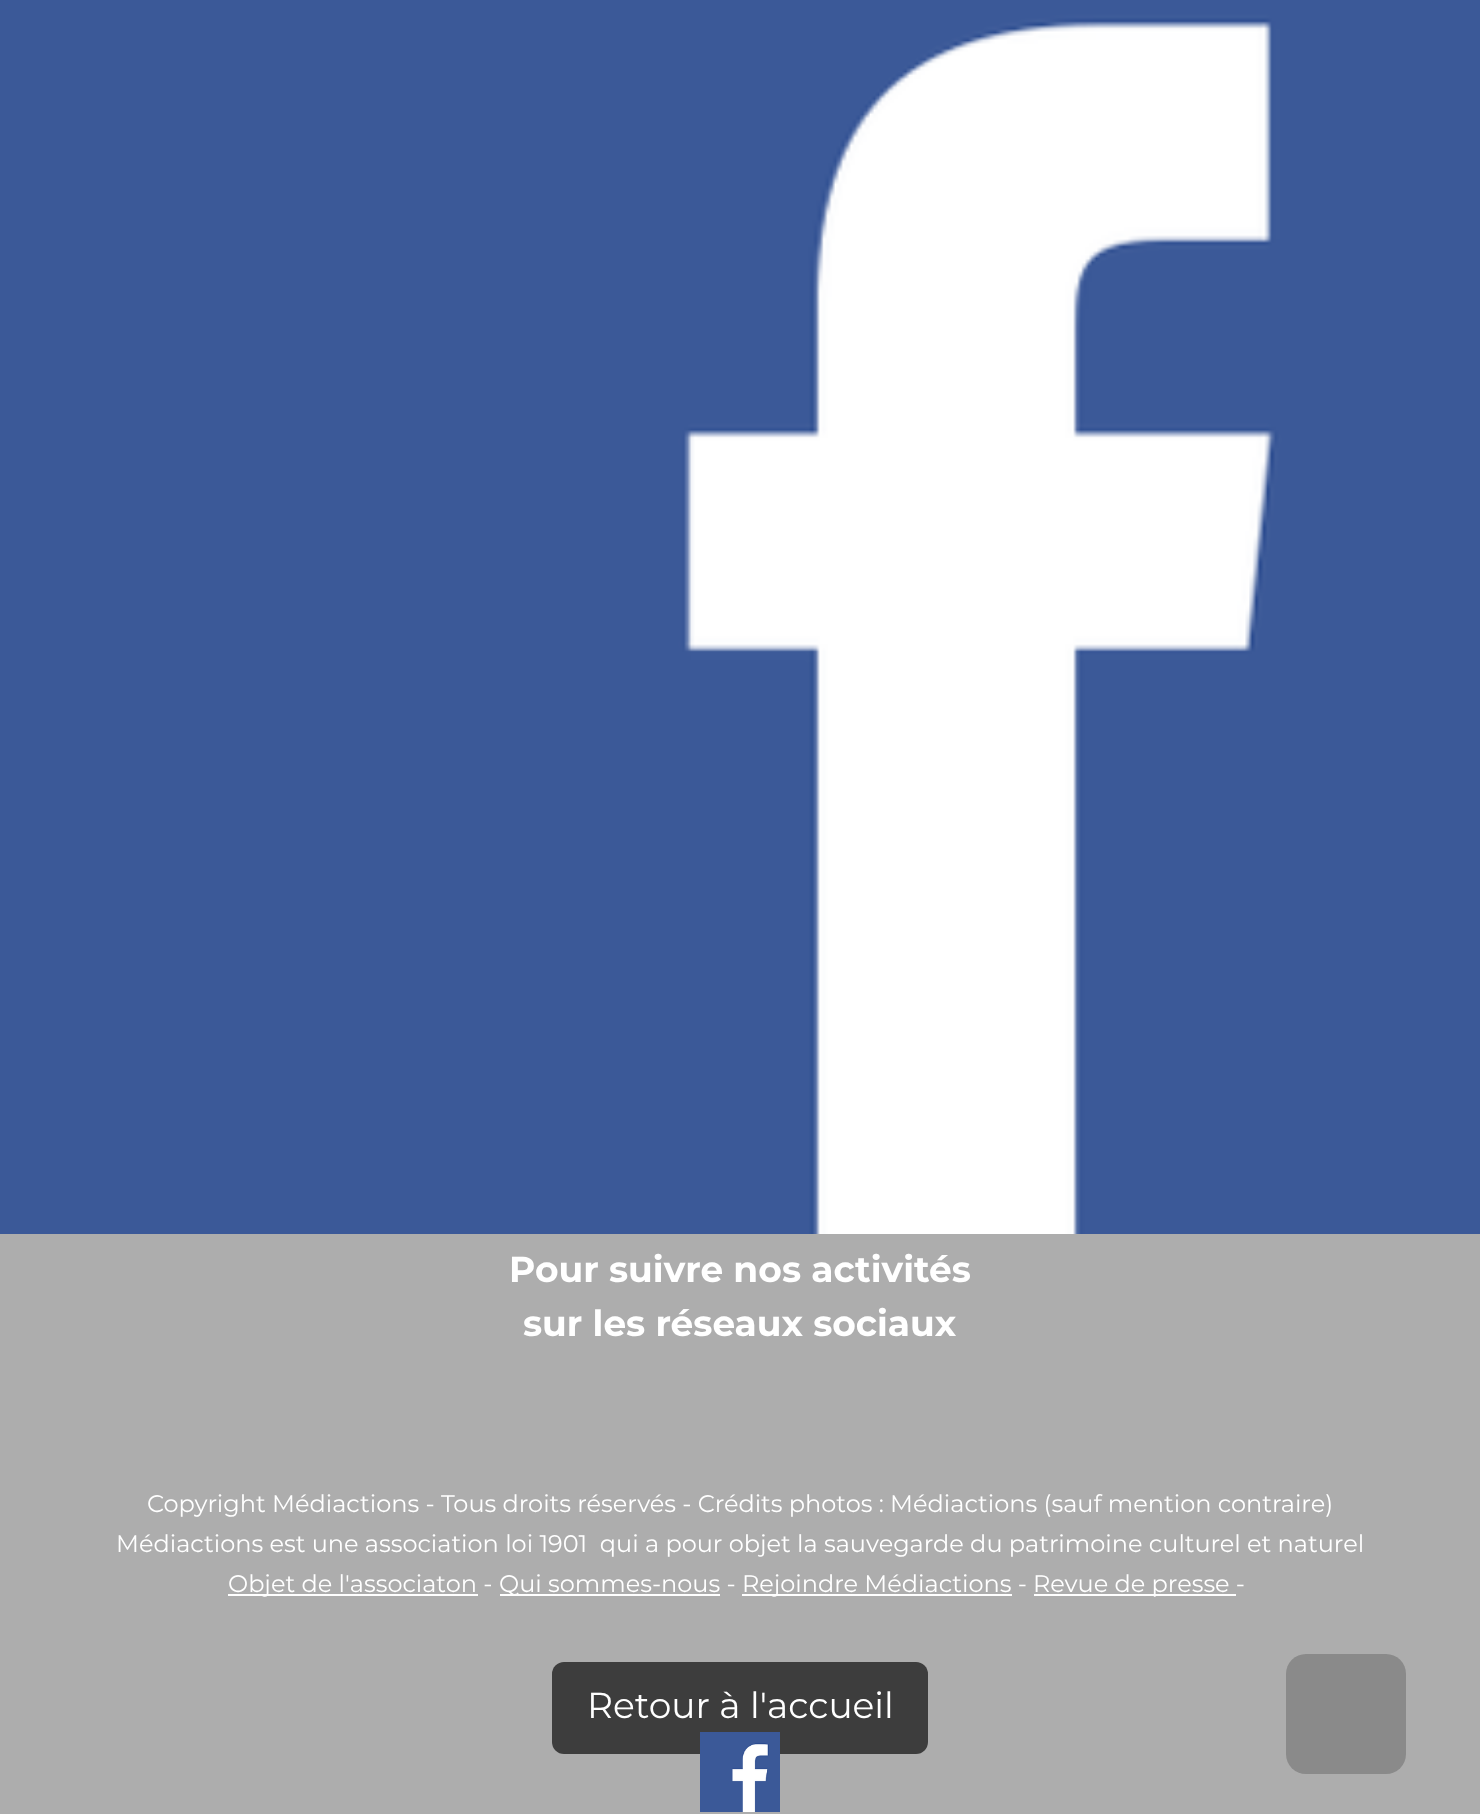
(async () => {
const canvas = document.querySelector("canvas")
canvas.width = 1480
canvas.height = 1814
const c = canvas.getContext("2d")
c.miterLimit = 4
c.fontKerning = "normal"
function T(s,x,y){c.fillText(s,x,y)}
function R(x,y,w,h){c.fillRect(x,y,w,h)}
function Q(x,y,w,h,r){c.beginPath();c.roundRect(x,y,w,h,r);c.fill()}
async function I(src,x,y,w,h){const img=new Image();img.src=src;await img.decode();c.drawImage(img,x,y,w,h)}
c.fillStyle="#adadad"
R(0,0,1480,1814)
await I("1.png",0,0,1480,1234)
c.font="bold 36px Montserrat"
c.fillStyle="#fff"
T("Pour suivre nos activités",509,1282)
T("sur les réseaux sociaux",523,1336)
c.font="24px Montserrat"
T("Copyright Médiactions - Tous droits réservés - Crédits photos : Médiactions (sauf mention contraire)",147,1512)
T("Médiactions est une association loi 1901  qui a pour objet la sauvegarde du patrimoine culturel et naturel",116,1552)
R(228,1594,250,2)
T("Objet de l'associaton -",228,1592)
R(500,1594,220,2)
T("Qui sommes-nous -",499,1592)
R(742,1594,270,2)
T("Rejoindre Médiactions -",742,1592)
R(1034,1594,202,2)
T("Revue de presse -",1033,1592)
c.fillStyle="#3d3d3d"
Q(552,1662,376,92,12)
c.font="36px Montserrat"
c.fillStyle="#fff"
T("Retour à l'accueil",587,1718)
await I("2.png",700,1732,80,80)
c.fillStyle="#8a8a8a"
Q(1286,1654,120,120,20)
})()
